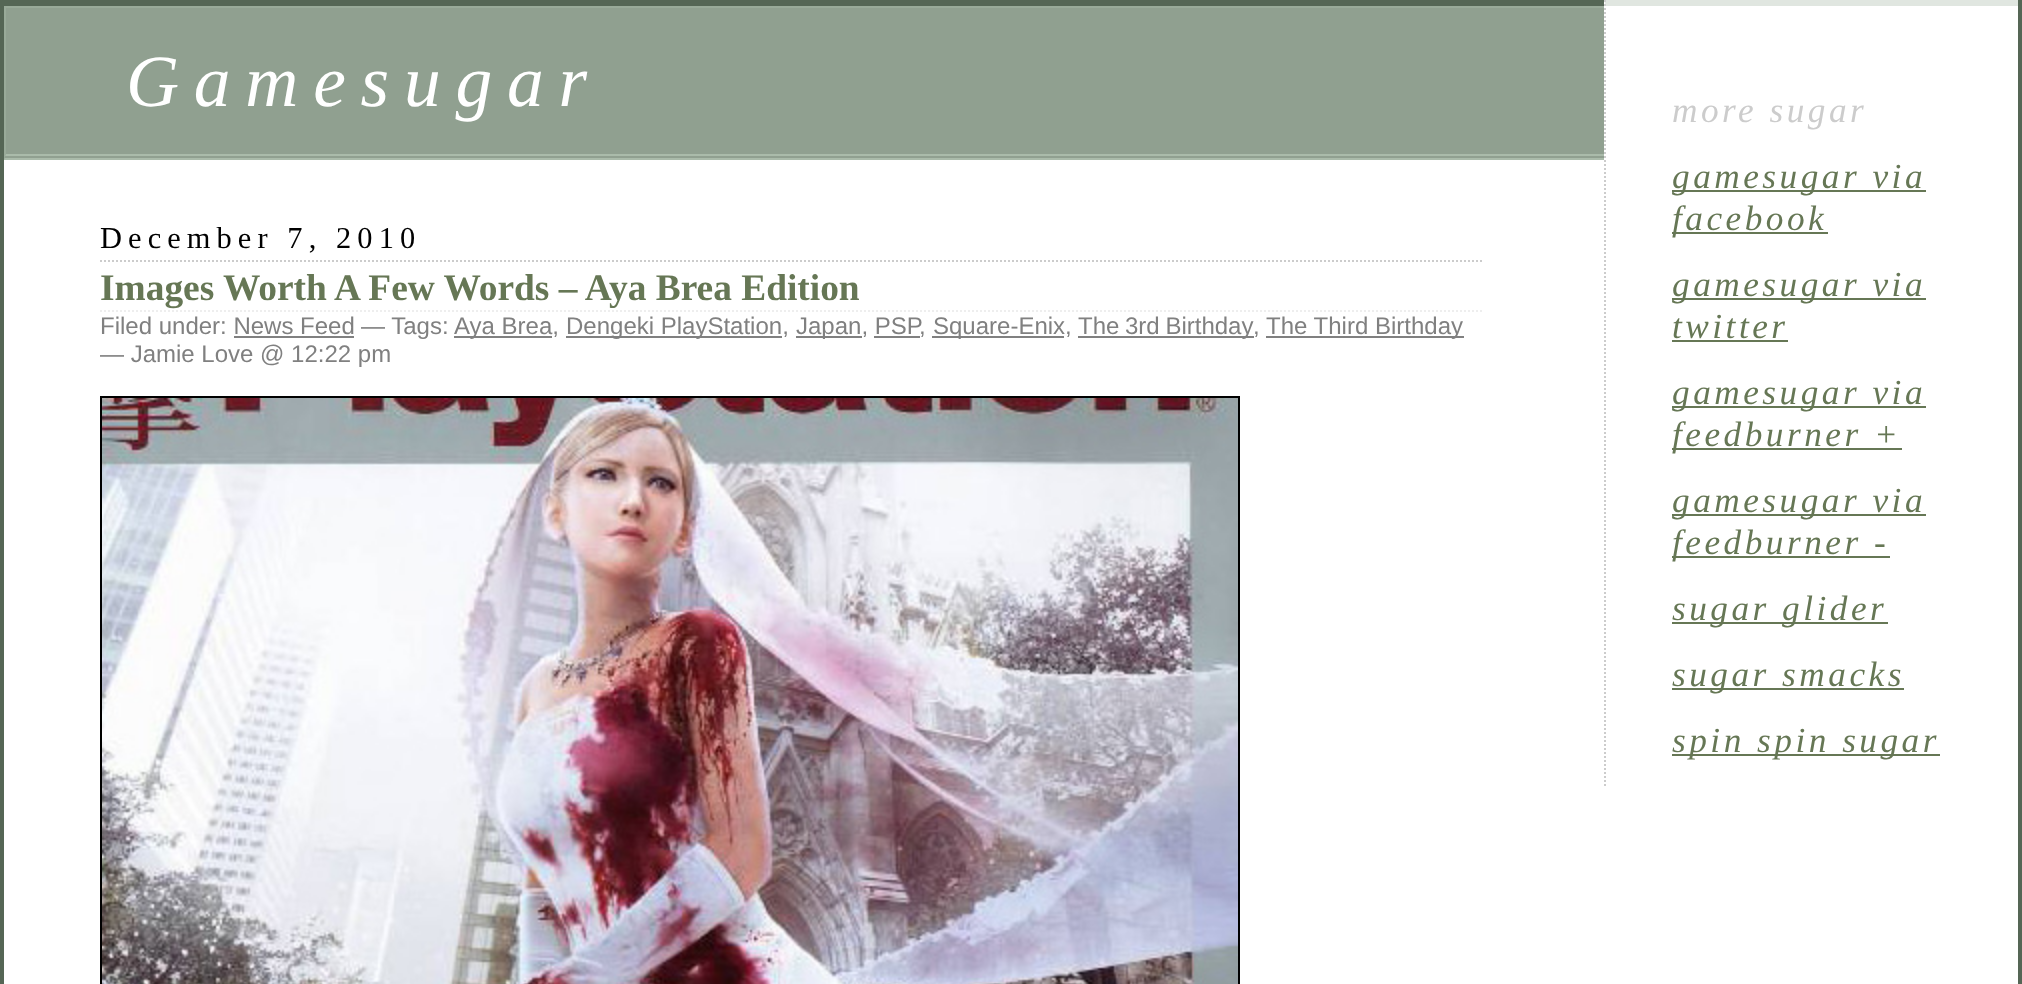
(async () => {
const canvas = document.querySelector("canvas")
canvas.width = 2022
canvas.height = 984
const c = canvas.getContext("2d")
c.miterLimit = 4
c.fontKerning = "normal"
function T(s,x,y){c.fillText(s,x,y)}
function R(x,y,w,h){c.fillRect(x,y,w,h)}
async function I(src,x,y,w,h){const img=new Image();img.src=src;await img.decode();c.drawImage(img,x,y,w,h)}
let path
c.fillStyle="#fff"
R(0,0,2022,984)
c.fillStyle="#565"
R(0,0,1604,6)
R(2018,0,4,984)
R(0,0,4,984)
c.fillStyle="#90a090"
R(4,8,1600,150)
c.fillStyle="#9a9"
R(4,6,1600,2)
c.fillStyle="#aba"
R(4,154,1600,2)
R(4,158,1600,2)
c.fillStyle="#9a9"
path = new Path2D("M4 160v-154l2 2v146z")
c.fill(path)
c.letterSpacing="14.75px"
c.font="italic 73.5px Liberation Serif"
c.fillStyle="#fff"
T("Gamesugar",126,106)
path = new Path2D("M100 261h1382")
c.strokeStyle="#ccc"
c.lineWidth=2
c.setLineDash([2,2])
c.stroke(path)
c.letterSpacing="6.1px"
c.font="30.4px Liberation Serif"
c.fillStyle="#000"
T("December 7, 2010",100,248)
path = new Path2D("M100 311h1382")
c.strokeStyle="#eee"
c.stroke(path)
c.letterSpacing="0px"
c.font="bold 37.4px Liberation Serif"
c.fillStyle="#675"
T("Images Worth A Few Words – Aya Brea Edition",100,300)
c.font="24px Liberation Sans"
c.fillStyle="#808080"
T("Filed under: News Feed",100,334)
T("— Tags:",361,334)
R(454,336,98,2)
T("Aya Brea,",454,334)
R(566,336,216,2)
T("Dengeki PlayStation,",566,334)
R(796,336,66,2)
T("Japan, PSP",796,334)
T(",",919,334)
R(932,336,132,2)
T("Square-Enix,",933,334)
R(1078,336,176,2)
c.wordSpacing="-1px"
T("The 3rd Birthday",1078,334)
c.wordSpacing="0px"
T(",",1253,334)
R(1266,336,198,2)
T("The Third Birthday",1266,334)
R(234,336,120,2)
R(874,336,46,2)
T("— Jamie Love @ 12:22 pm",100,362)
c.strokeStyle="#000"
c.setLineDash([])
c.strokeRect(101,397,1138,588)
await I("1.png",102,398,1136,586)
c.fillStyle="#e0e6e0"
path = new Path2D("M1604 0h414v6h-412z")
c.fill(path)
path = new Path2D("M1605 0v786")
c.strokeStyle="#ccc"
c.setLineDash([2,2])
c.stroke(path)
c.letterSpacing="3.5px"
c.font="italic 35.25px Liberation Serif"
c.fillStyle="#ccc"
T("more sugar",1672,122)
c.fillStyle="#675"
R(1672,190,254,2)
T("gamesugar via",1672,188)
R(1672,232,156,2)
T("facebook",1672,230)
R(1672,298,254,2)
T("gamesugar via",1672,296)
T("twitter",1672,338)
R(1672,340,116,2)
R(1672,406,254,2)
T("gamesugar via",1672,404)
R(1672,448,230,2)
T("feedburner +",1672,446)
R(1672,514,254,2)
T("gamesugar via",1672,512)
R(1672,556,218,2)
T("feedburner -",1672,554)
R(1672,622,216,2)
T("sugar glider",1672,620)
R(1672,688,232,2)
T("sugar smacks",1672,686)
R(1672,754,268,2)
T("spin spin sugar",1672,752)
})()
